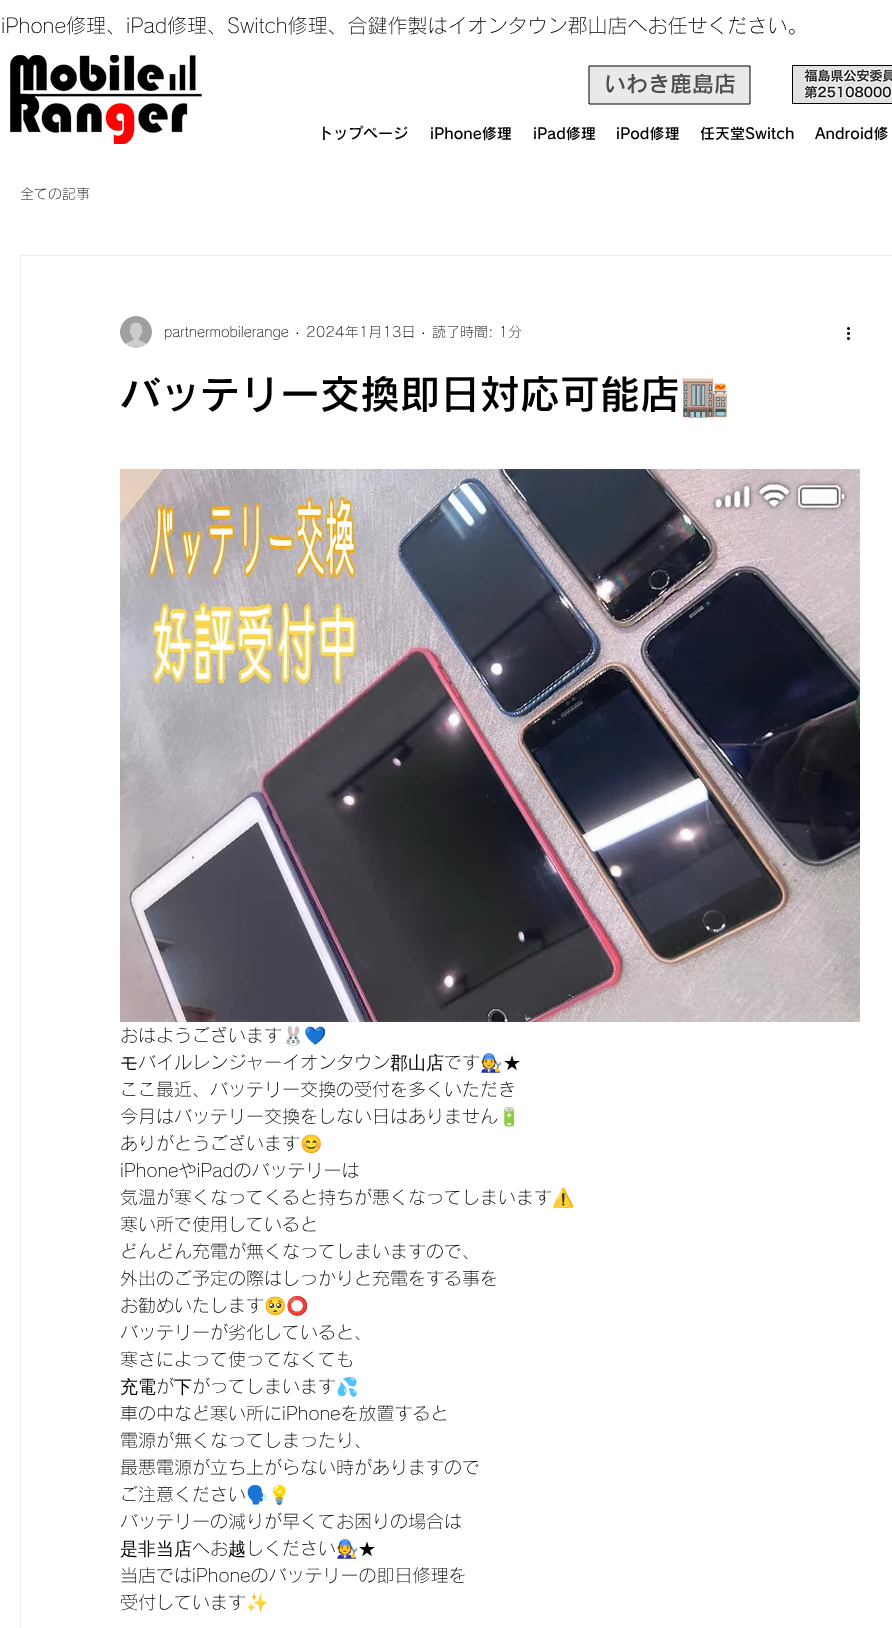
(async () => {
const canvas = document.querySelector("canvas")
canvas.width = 892
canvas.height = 1628
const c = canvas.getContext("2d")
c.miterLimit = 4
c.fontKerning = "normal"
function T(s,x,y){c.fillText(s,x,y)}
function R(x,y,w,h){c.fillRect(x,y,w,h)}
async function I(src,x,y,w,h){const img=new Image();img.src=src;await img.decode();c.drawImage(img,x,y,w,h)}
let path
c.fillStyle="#fff"
R(0,0,892,1628)
c.fillStyle="#e9e9e9"
R(589,66,161,38)
c.font="300 20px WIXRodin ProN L"
c.fillStyle="#000"
T("iPhone修理、iPad修理、Switch修理、合鍵作製はイオンタウン郡山店へお任せください。",1,33)
await I("1.png",10,55,192,89)
c.font="600 22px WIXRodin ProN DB"
c.fillStyle="#4e4e4e"
T("いわき鹿島店",604,92)
path = new Path2D("M750 66v38h-161v-38z")
c.strokeStyle="#000"
c.stroke(path)
c.fillStyle="#000"
R(792,65,100,39)
await I("2.png",793,66,99,37)
c.font="600 15px WIXRodin ProN DB"
T("トップページ",318,139)
T("iPhone修理",430,139)
T("iPad修理",533,139)
T("iPod修理",616,139)
T("任天堂Switch",700,139)
T("Android修",815,139)
c.font="300 14px WIXRodin ProN L"
T("全ての記事",20,199)
c.strokeStyle="#eeecec"
c.strokeRect(20.5,255.5,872,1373)
await I("3.png",120,316,32,32)
T("partnermobilerange",164,337)
c.font="14px Liberation Sans"
T("·",295,337)
c.font="300 14px WIXRodin ProN L"
T("2024年1月13日",306,337)
c.font="14px Liberation Sans"
T("·",421,337)
c.font="300 14px WIXRodin ProN L"
T("読了時間: 1分",432,337)
await I("4.png",847,327,3,13)
c.font="600 40px WIXRodin ProN DB"
T("バッテリー交換即日対応可能店",120,409)
c.font="40px Noto Color Emoji"
T("🏬",680,409)
await I("5.png",120,469,740,553)
c.font="300 18px WIXRodin ProN L"
T("おはようございます",120,1042)
c.font="18px Noto Color Emoji"
T("🐰💙",282,1042)
c.font="500 18px WenQuanYi Zen Hei"
T("モ",120,1069)
c.font="300 18px WIXRodin ProN L"
T("バイルレンジャーイオンタウン",138,1069)
c.font="500 18px WenQuanYi Zen Hei"
T("郡山店",390,1069)
c.font="300 18px WIXRodin ProN L"
T("です",444,1069)
c.font="18px 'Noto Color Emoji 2'"
T("🧑‍🔧",480,1069)
c.font="500 18px WenQuanYi Zen Hei"
T("★",503,1069)
c.font="300 18px WIXRodin ProN L"
T("ここ最近、バッテリー交換の受付を多くいただき",120,1096)
T("今月はバッテリー交換をしない日はありません",120,1123)
c.font="18px Noto Color Emoji"
T("🔋",498,1123)
c.font="300 18px WIXRodin ProN L"
T("ありがとうございます",120,1150)
c.font="18px Noto Color Emoji"
T("😊",300,1150)
c.font="300 18px WIXRodin ProN L"
T("iPhoneやiPadのバッテリーは",120,1177)
T("気温が寒くなってくると持ちが悪くなってしまいます",120,1204)
c.font="18px Noto Color Emoji"
T("⚠️",552,1204)
c.font="300 18px WIXRodin ProN L"
T("寒い所で使用していると",120,1231)
T("どんどん充電が無くなってしまいますので、",120,1258)
T("外出のご予定の際はしっかりと充電をする事を",120,1285)
T("お勧めいたします",120,1312)
c.font="18px Noto Color Emoji"
T("🥺⭕️",264,1312)
c.font="300 18px WIXRodin ProN L"
T("バッテリーが劣化していると、",120,1339)
T("寒さによって使ってなくても",120,1366)
c.font="500 18px WenQuanYi Zen Hei"
T("充電",120,1393)
c.font="300 18px WIXRodin ProN L"
T("が",156,1393)
c.font="500 18px WenQuanYi Zen Hei"
T("下",174,1393)
c.font="300 18px WIXRodin ProN L"
T("がってしまいます",192,1393)
c.font="18px 'Noto Color Emoji 2'"
T("💦",336,1393)
c.font="300 18px WIXRodin ProN L"
T("車の中など寒い所にiPhoneを放置すると",120,1420)
T("電源が無くなってしまったり、",120,1447)
T("最悪電源が立ち上がらない時がありますので",120,1474)
T("ご注意ください",120,1501)
c.font="18px Noto Color Emoji"
T("🗣️💡",246,1501)
c.font="300 18px WIXRodin ProN L"
T("バッテリーの減りが早くてお困りの場合は",120,1528)
c.font="500 18px WenQuanYi Zen Hei"
T("是非当店",120,1555)
c.font="300 18px WIXRodin ProN L"
T("へお",192,1555)
c.font="500 18px WenQuanYi Zen Hei"
T("越",228,1555)
c.font="300 18px WIXRodin ProN L"
T("しください",246,1555)
c.font="18px 'Noto Color Emoji 2'"
T("🧑‍🔧",336,1555)
c.font="500 18px WenQuanYi Zen Hei"
T("★",358,1555)
c.font="300 18px WIXRodin ProN L"
T("当店ではiPhoneのバッテリーの即日修理を",120,1582)
T("受付しています",120,1609)
c.font="18px Noto Color Emoji"
T("✨",246,1609)
})()
